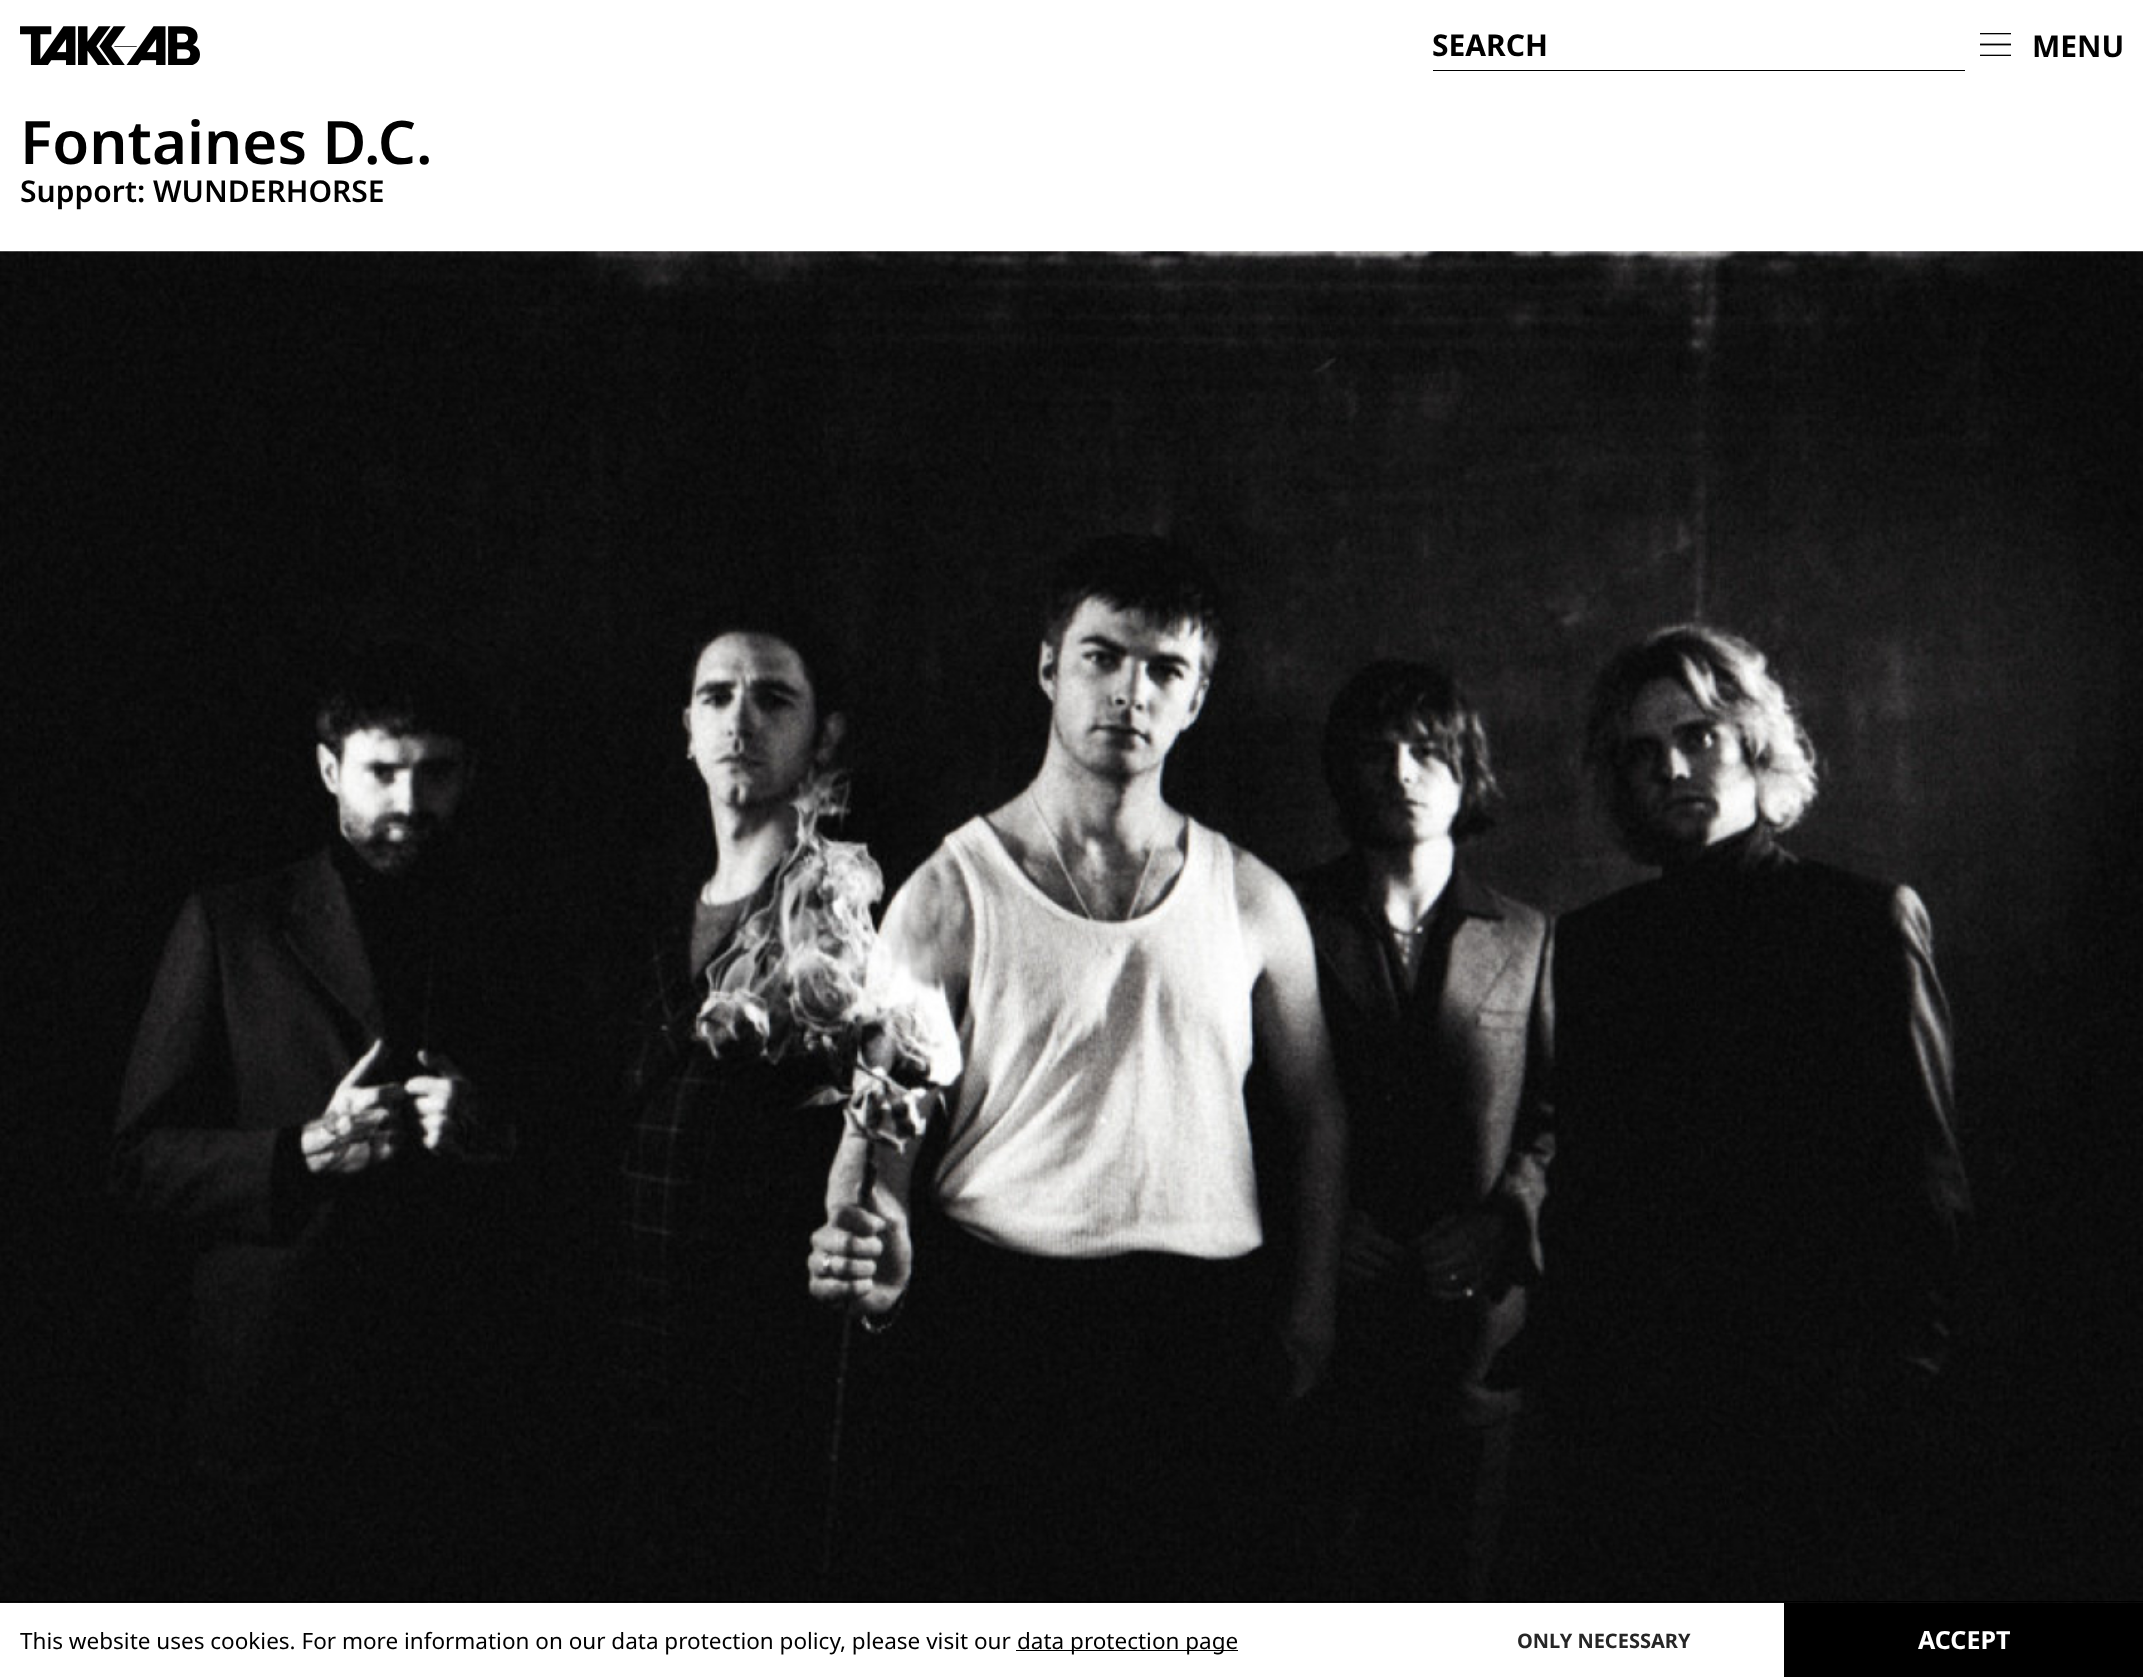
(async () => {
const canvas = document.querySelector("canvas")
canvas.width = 2143
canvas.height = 1677
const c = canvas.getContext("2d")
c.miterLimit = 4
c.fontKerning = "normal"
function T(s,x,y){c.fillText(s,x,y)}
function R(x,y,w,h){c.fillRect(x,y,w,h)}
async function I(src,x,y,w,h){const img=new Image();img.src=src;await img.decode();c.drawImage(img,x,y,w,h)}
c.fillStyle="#fff"
R(0,0,2143,1677)
await I("1.png",20,26,180,39)
c.fillStyle="#000"
R(1433,70,532,1)
c.font="bold 30px Noto Sans"
T("SEARCH",1432,56)
await I("2.png",1980,33,31,23)
T("MENU",2032,57)
c.font="600 60px Noto Sans"
T("Fontaines D.C.",20,164)
c.font="600 30px Noto Sans"
T("Support: WUNDERHORSE",20,202)
await I("3.png",0,251,2143,1352)
R(0,1601,2143,1)
c.font="22.5px Noto Sans"
T("This website uses cookies. For more information on our data protection policy, please visit our",20,1649)
R(1016,1650,222,1)
T("data protection page",1017,1649)
c.font="bold 20px Noto Sans"
c.fillStyle="#262626"
T("ONLY NECESSARY",1517,1648)
c.fillStyle="#000"
R(1784,1603,359,74)
c.font="bold 25px Noto Sans"
c.fillStyle="#fff"
T("ACCEPT",1918,1649)
})()
